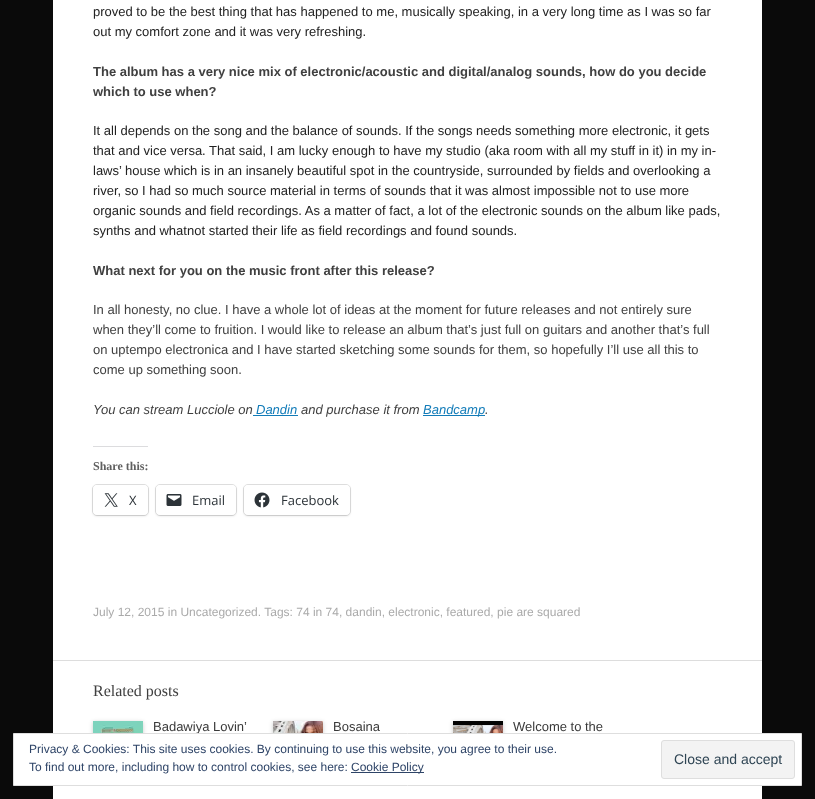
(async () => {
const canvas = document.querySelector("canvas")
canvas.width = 815
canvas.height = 799
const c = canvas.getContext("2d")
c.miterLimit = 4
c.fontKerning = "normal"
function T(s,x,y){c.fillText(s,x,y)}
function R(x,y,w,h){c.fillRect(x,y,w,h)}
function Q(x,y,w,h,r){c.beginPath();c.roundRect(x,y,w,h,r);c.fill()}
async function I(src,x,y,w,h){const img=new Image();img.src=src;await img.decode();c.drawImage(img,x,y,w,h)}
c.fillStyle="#0a0a0a"
R(0,0,815,799)
c.fillStyle="#fff"
R(53,0,709,799)
c.fillStyle="#ddd"
R(53,660,709,1)
c.font="13px Liberation Sans"
c.fillStyle="#222"
T("proved to be the best thing that has happened to me, musically speaking, in a very long time as I was so far",93,16)
T("out my comfort zone and it was very refreshing.",93,36)
c.font="bold 13px Liberation Sans"
c.fillStyle="#404040"
T("The album has a very nice mix of electronic/acoustic and digital/analog sounds, how do you decide",93,76)
T("which to use when?",93,96)
c.font="13px Liberation Sans"
c.fillStyle="#222"
T("It all depends on the song and the balance of sounds. If the songs needs something more electronic, it gets",93,135)
T("that and vice versa. That said, I am lucky enough to have my studio (aka room with all my stuff in it) in my in-",93,155)
T("laws’ house which is in an insanely beautiful spot in the countryside, surrounded by fields and overlooking a",93,175)
T("river, so I had so much source material in terms of sounds that it was almost impossible not to use more",93,195)
T("organic sounds and field recordings. As a matter of fact, a lot of the electronic sounds on the album like pads,",93,215)
T("synths and whatnot started their life as field recordings and found sounds.",93,235)
c.font="bold 13px Liberation Sans"
c.fillStyle="#404040"
T("What next for you on the music front after this release?",93,275)
c.font="13px Liberation Sans"
T("In all honesty, no clue. I have a whole lot of ideas at the moment for future releases and not entirely sure",93,314)
T("when they’ll come to fruition. I would like to release an album that’s just full on guitars and another that’s full",93,334)
T("on uptempo electronica and I have started sketching some sounds for them, so hopefully I’ll use all this to",93,354)
T("come up something soon.",93,374)
c.font="italic 13px Liberation Sans"
T("You can stream Lucciole on",93,414)
c.fillStyle="#117bb8"
R(253,415,45,1)
T("Dandin",256,414)
c.fillStyle="#404040"
T("and purchase it from",301,414)
c.fillStyle="#117bb8"
R(423,415,62,1)
T("Bandcamp",423,414)
c.fillStyle="#404040"
T(".",485,414)
c.fillStyle="#dcdcde"
R(93,446,55,1)
c.font="bold 12px Liberation Serif"
c.fillStyle="#606060"
T("Share this:",93,470)
c.beginPath()
c.roundRect(92.5,484.5,56,31,4.5)
c.strokeStyle="#e0e0e0"
c.stroke()
c.fillStyle="#0000001f"
c.filter="blur(1px)"
c.beginPath()
c.roundRect(93,486,55,30,4)
c.fill()
c.filter="none"
c.fillStyle="#fff"
Q(93,485,55,30,4)
await I("1.png",104,493,14,14)
c.font="13px Open Sans"
c.fillStyle="#2c3338"
T("X",129,505)
c.beginPath()
c.roundRect(155.5,484.5,81,31,4.5)
c.stroke()
c.fillStyle="#0000001f"
c.filter="blur(1px)"
c.beginPath()
c.roundRect(156,486,80,30,4)
c.fill()
c.filter="none"
c.fillStyle="#fff"
Q(156,485,80,30,4)
await I("2.png",166,494,16,12)
c.fillStyle="#2c3338"
T("Email",192,505)
c.beginPath()
c.roundRect(243.5,484.5,107,31,4.5)
c.stroke()
c.fillStyle="#0000001f"
c.filter="blur(1px)"
c.beginPath()
c.roundRect(244,486,106,30,4)
c.fill()
c.filter="none"
c.fillStyle="#fff"
Q(244,485,106,30,4)
await I("3.png",254,492,16,16)
c.fillStyle="#2c3338"
T("Facebook",281,505)
c.font="12px Liberation Sans"
c.fillStyle="#aaa"
T("July 12, 2015 in Uncategorized. Tags: 74 in 74, dandin, electronic, featured, pie are squared",93,616)
c.font="16px Liberation Serif"
c.fillStyle="#404040"
T("Related posts",93,696)
c.fillStyle="#00000033"
c.filter="blur(2px)"
c.beginPath()
c.rect(93,722,50,50)
c.fill()
c.filter="none"
await I("4.png",93,721,50,12)
c.font="13px Liberation Sans"
c.fillStyle="#3a3a3a"
T("Badawiya Lovin’",153,731)
c.fillStyle="#00000033"
c.filter="blur(2px)"
c.beginPath()
c.rect(273,722,50,50)
c.fill()
c.filter="none"
await I("5.png",273,721,50,12)
c.fillStyle="#3a3a3a"
T("Bosaina",333,731)
c.fillStyle="#00000033"
c.filter="blur(2px)"
c.beginPath()
c.rect(453,722,50,50)
c.fill()
c.filter="none"
await I("6.png",453,721,50,12)
c.fillStyle="#3a3a3a"
T("Welcome to the",513,731)
c.fillStyle="#fff"
c.beginPath()
c.rect(13.5,733.5,788,52)
c.fill()
c.strokeStyle="#dedede"
c.stroke()
c.font="12px Liberation Sans"
c.fillStyle="#2e4467"
T("Privacy & Cookies: This site uses cookies. By continuing to use this website, you agree to their use.",29,753)
T("To find out more, including how to control cookies, see here:",29,771)
R(351,772,73,1)
T("Cookie Policy",351,771)
c.fillStyle="#f3f3f3"
c.beginPath()
c.roundRect(661.5,740.5,133,38,2.5)
c.fill()
c.stroke()
c.font="14px Liberation Sans"
c.fillStyle="#2e4453"
T("Close and accept",674,764)
})()
